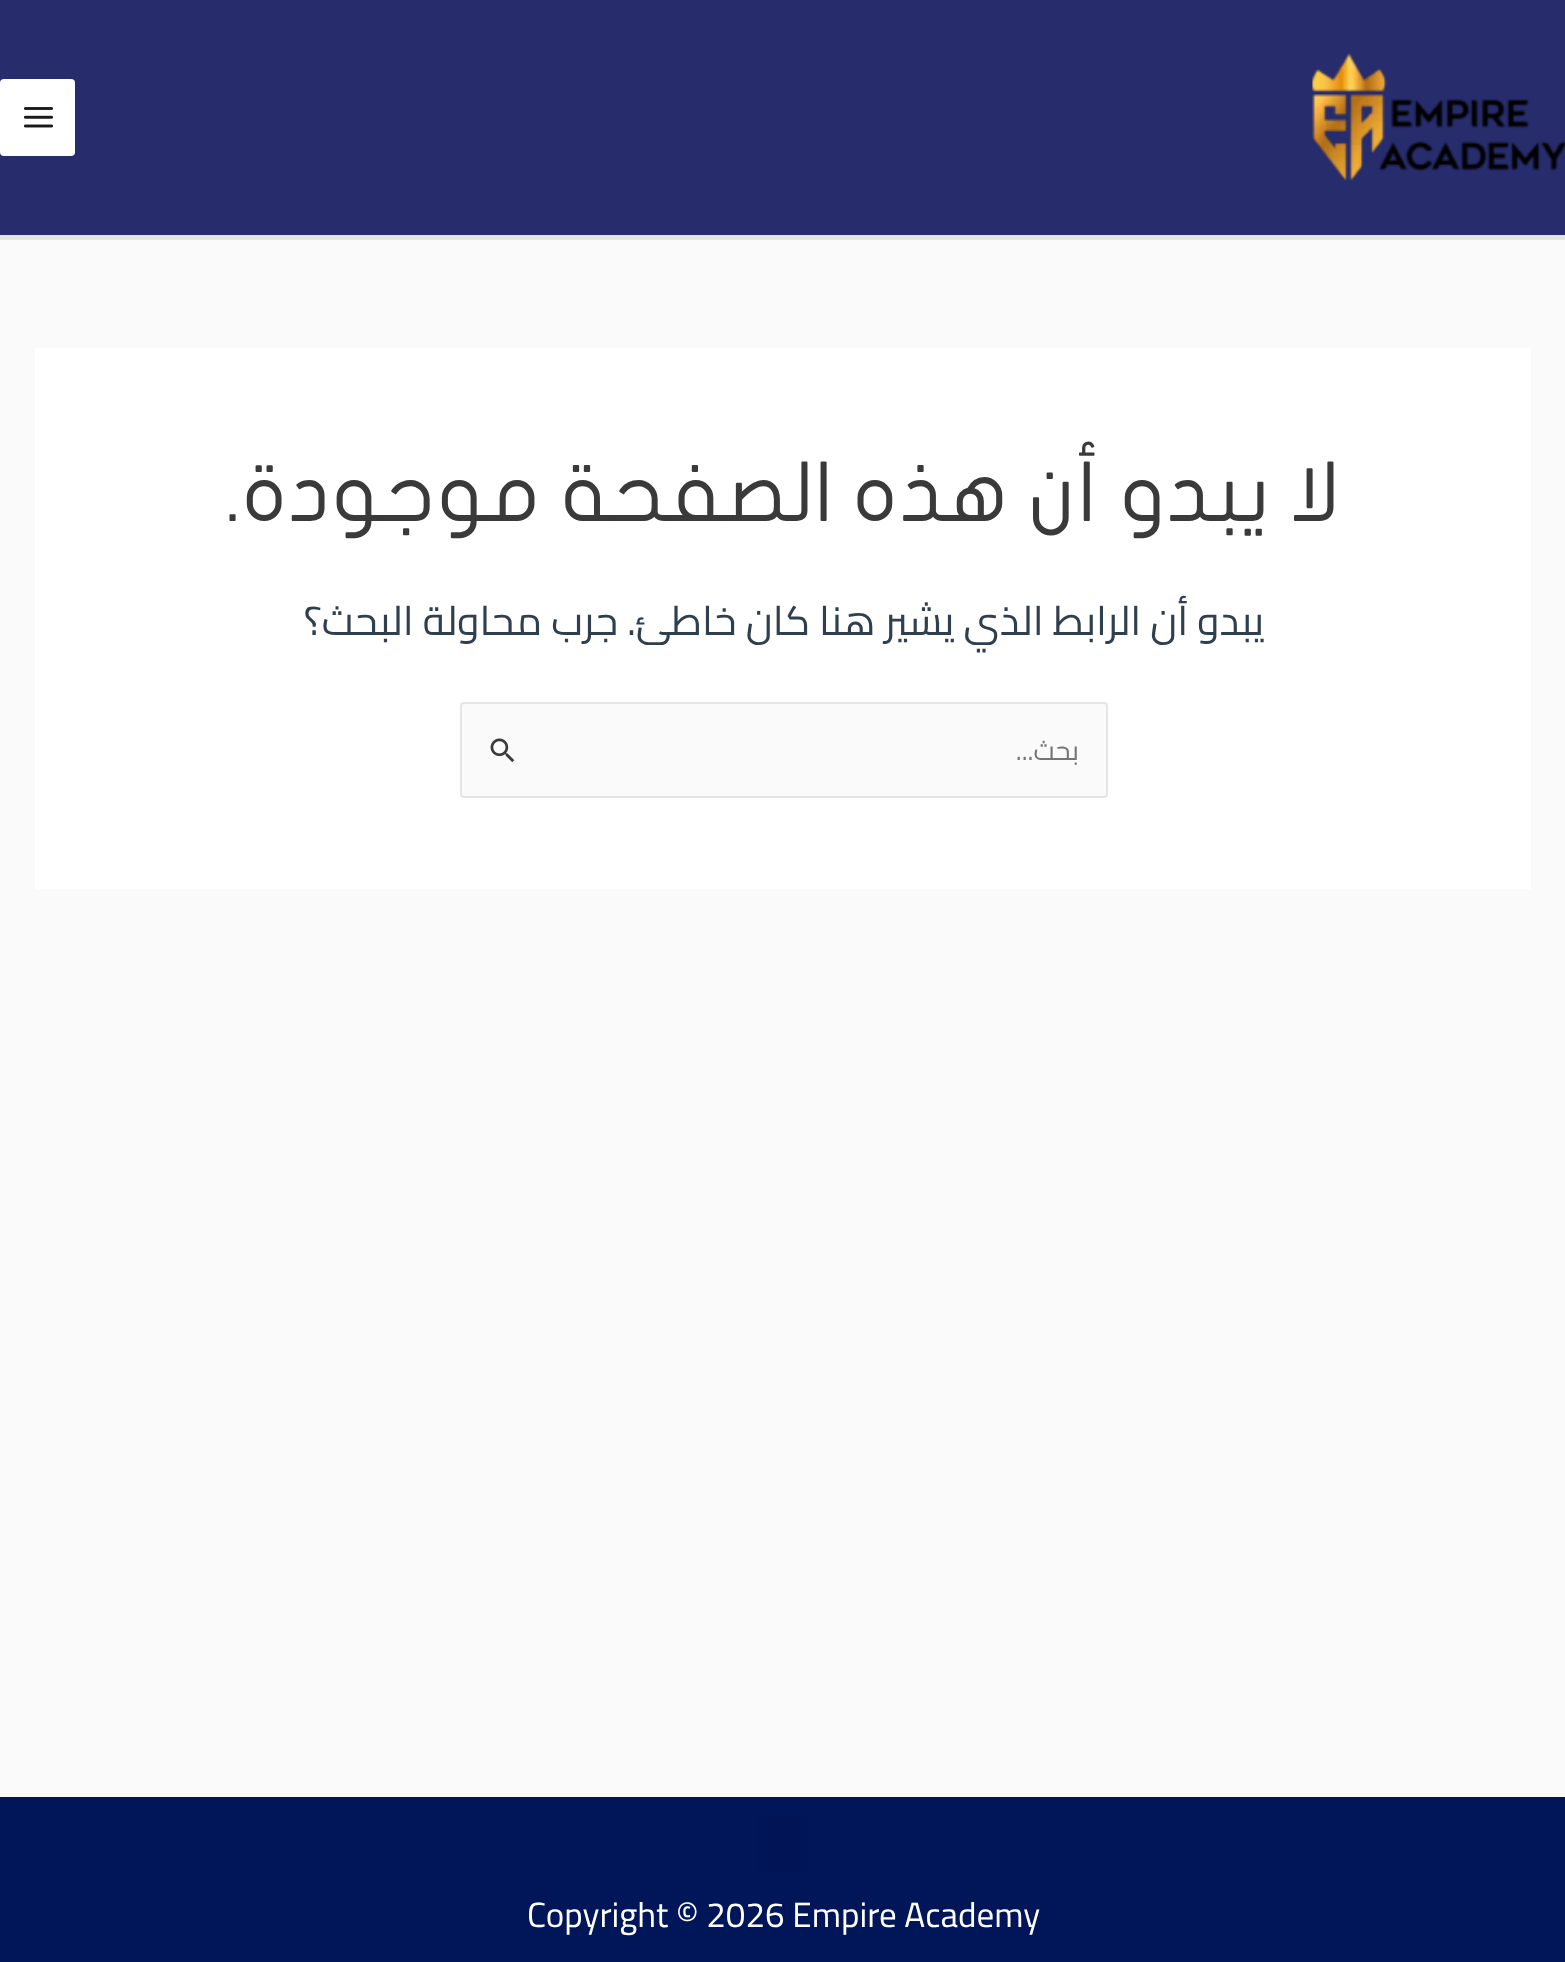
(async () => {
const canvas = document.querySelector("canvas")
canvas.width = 1565
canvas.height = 1962
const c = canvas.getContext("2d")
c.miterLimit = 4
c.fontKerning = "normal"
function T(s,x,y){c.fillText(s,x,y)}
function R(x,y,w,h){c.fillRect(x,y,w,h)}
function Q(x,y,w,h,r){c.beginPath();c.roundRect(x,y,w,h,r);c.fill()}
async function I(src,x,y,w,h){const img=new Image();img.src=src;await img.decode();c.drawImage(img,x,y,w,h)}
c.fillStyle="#fafafa"
R(0,0,1565,1962)
c.fillStyle="#272c6c"
R(0,0,1565,235)
c.fillStyle="#e5e5e5"
R(0,235,1565,5)
await I("1.png",1312,54,253,127)
c.fillStyle="#fff"
Q(0,79,75,77,4)
await I("2.png",23,107,31,21)
R(35,348,1496,541)
c.direction="rtl"
c.font="82.25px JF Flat"
c.fillStyle="#3a3a3a"
T("لا يبدو أن هذه الصفحة موجودة.",1340,521)
c.font="40.7px Cairo"
c.fillStyle="#2f3f50"
T("يبدو أن الرابط الذي يشير هنا كان خاطئ. جرب محاولة البحث؟",1264,635)
c.fillStyle="#fafafa"
c.beginPath()
c.roundRect(461,703,646,94,3)
c.fill()
c.strokeStyle="#e5e5e5"
c.lineWidth=2
c.stroke()
c.font="27px Cairo"
c.fillStyle="#757575"
T("بحث...",1079,760)
await I("3.png",490,738,25,25)
c.fillStyle="#011559"
R(0,1797,1565,165)
c.fillStyle="#011455"
Q(758,1815,51,58,5)
c.direction="ltr"
c.font="35px Cairo"
c.fillStyle="#fff"
T("Copyright © 2026 Empire Academy",527,1927)
})()
